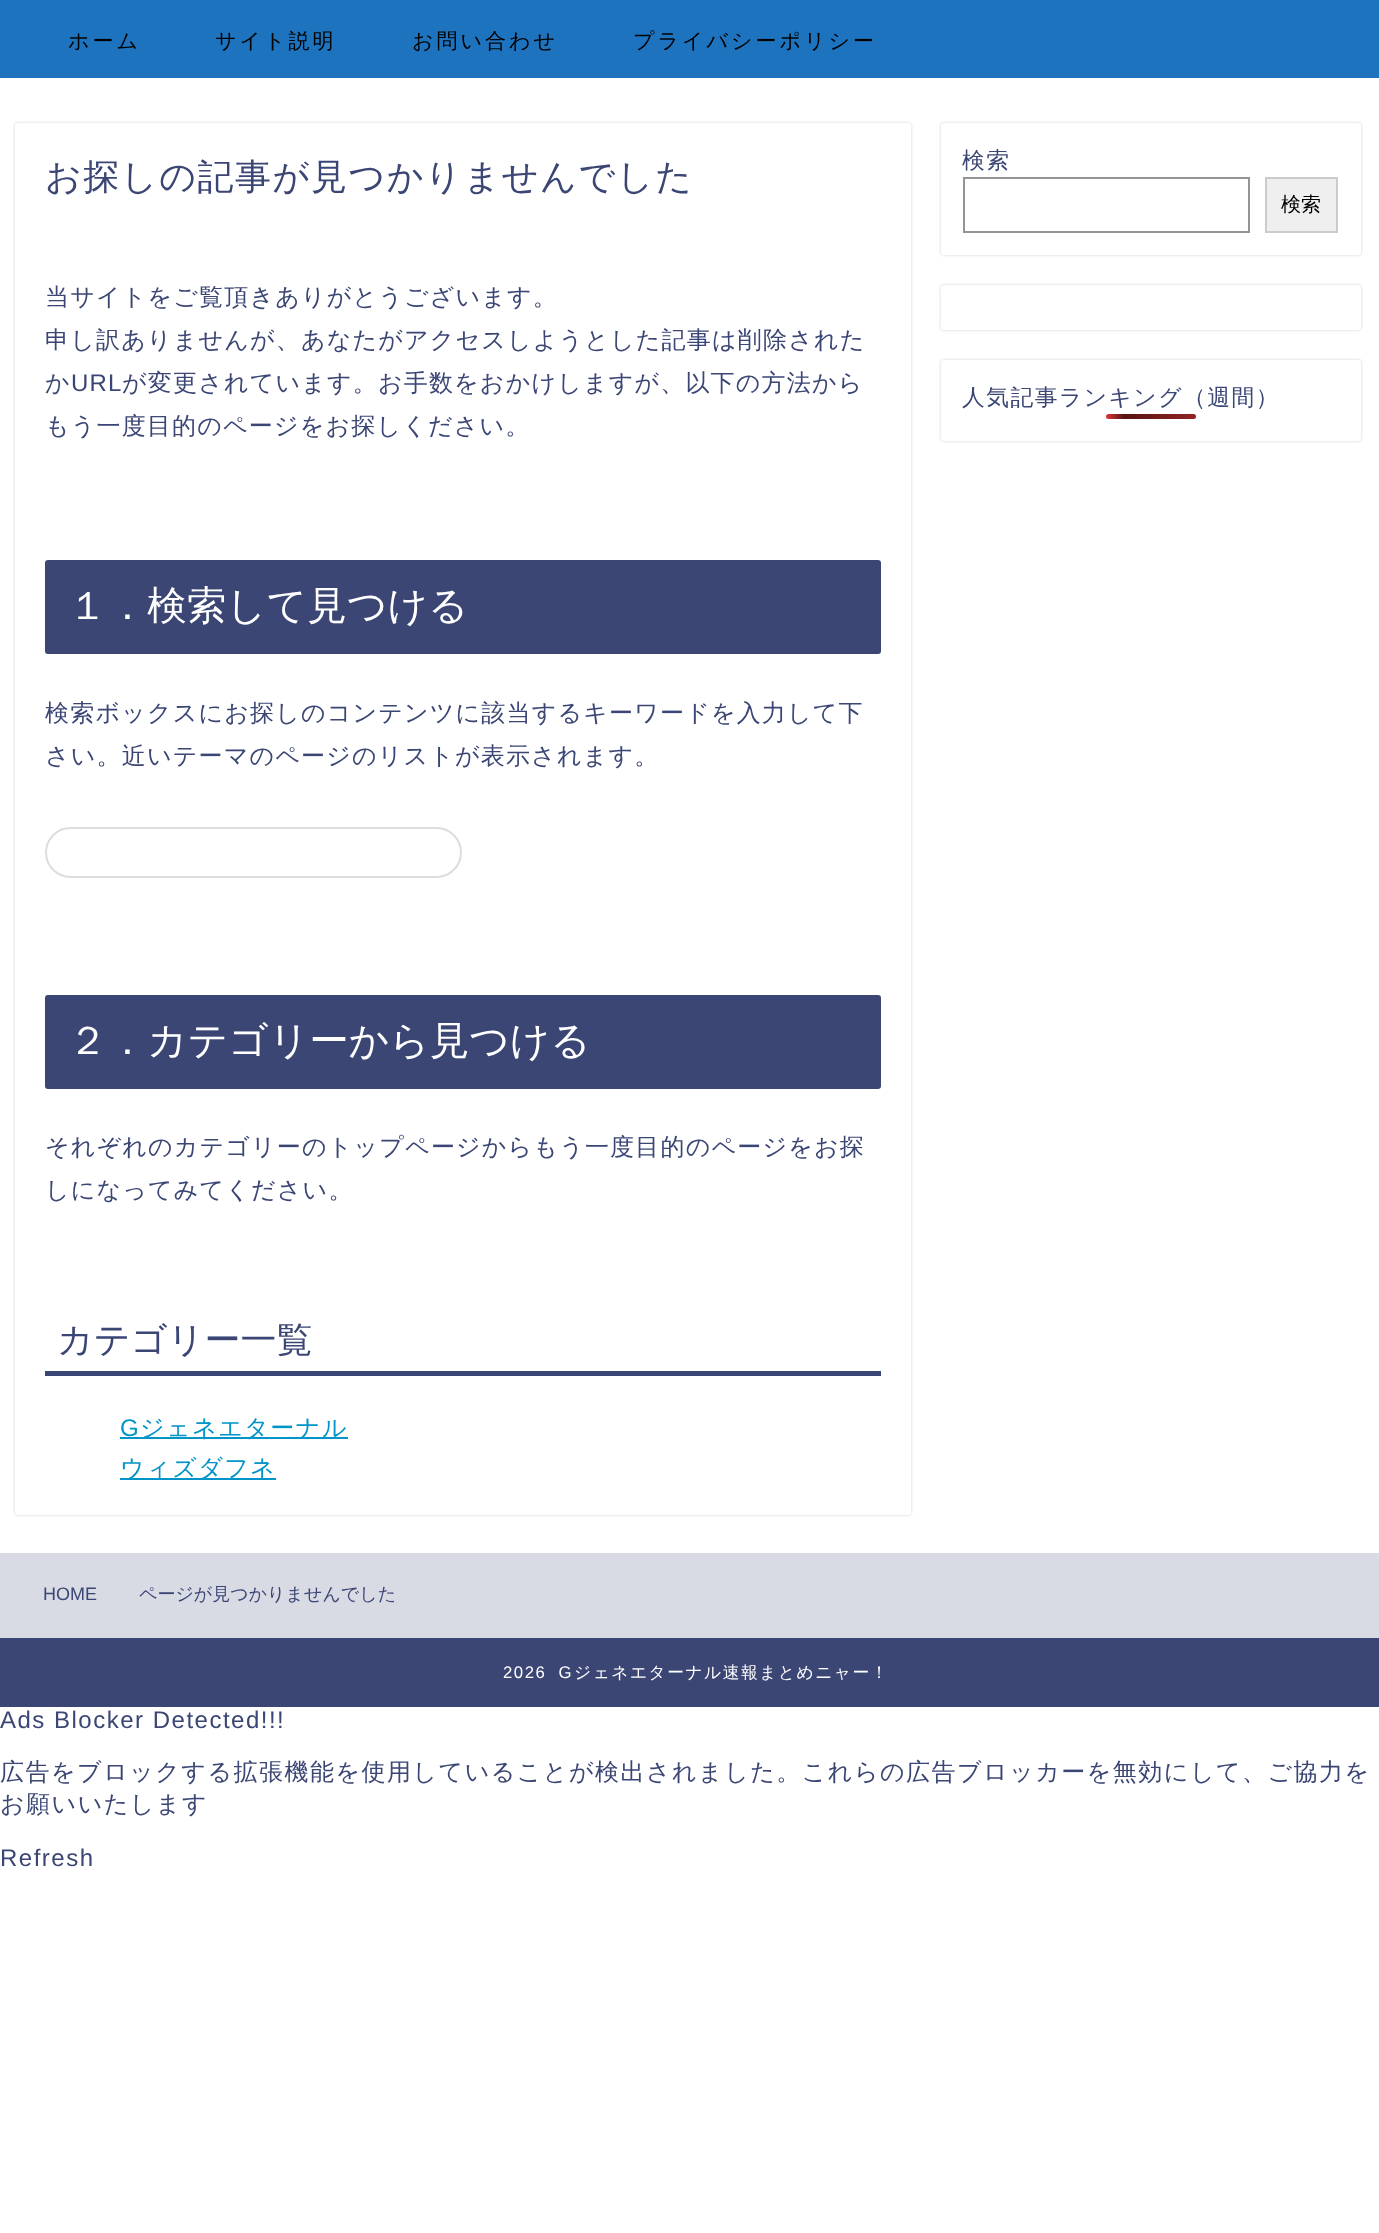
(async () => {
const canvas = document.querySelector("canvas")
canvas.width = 1379
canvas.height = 2233
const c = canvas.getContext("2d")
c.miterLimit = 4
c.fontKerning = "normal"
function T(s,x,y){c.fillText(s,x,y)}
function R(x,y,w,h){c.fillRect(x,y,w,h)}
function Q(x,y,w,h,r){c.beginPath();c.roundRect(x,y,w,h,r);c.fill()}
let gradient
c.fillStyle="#fff"
R(0,0,1379,2233)
c.fillStyle="#1e73be"
R(0,0,1379,78)
c.letterSpacing="3px"
c.font="500 21px WenQuanYi Zen Hei"
c.fillStyle="#000"
T("ホーム",68,48)
T("サイト説明",215,48)
T("お問い合わせ",412,48)
T("プライバシーポリシー",633,48)
c.fillStyle="#0000002e"
c.filter="blur(1.5px)"
c.beginPath()
c.roundRect(15,123,896,1392,3)
c.fill()
c.filter="none"
c.fillStyle="#fff"
Q(15,123,896,1392,3)
c.letterSpacing="1.5px"
c.font="500 36px WenQuanYi Zen Hei"
c.fillStyle="#3b4675"
T("お探しの記事が見つかりませんでした",45,189)
c.letterSpacing="1.2px"
c.font="500 24px WenQuanYi Zen Hei"
T("当サイトをご覧頂きありがとうございます。",45,305)
T("申し訳ありませんが、あなたがアクセスしようとした記事は削除された",45,348)
T("か",45,391)
c.font="24px Liberation Sans"
T("URL",71,391)
c.font="500 24px WenQuanYi Zen Hei"
T("が変更されています。お手数をおかけしますが、以下の方法から",122,391)
T("もう一度目的のページをお探しください。",45,434)
Q(45,560,836,94,3)
c.letterSpacing="0px"
c.font="500 39.6px WenQuanYi Zen Hei"
c.fillStyle="#fff"
T("１．検索して見つける",68,619)
c.letterSpacing="1.2px"
c.font="500 24px WenQuanYi Zen Hei"
c.fillStyle="#3b4675"
T("検索ボックスにお探しのコンテンツに該当するキーワードを入力して下",45,721)
T("さい。近いテーマのページのリストが表示されます。",45,764)
c.beginPath()
c.roundRect(46,828,415,49,24.5)
c.strokeStyle="#ddd"
c.lineWidth=2
c.stroke()
Q(45,995,836,94,3)
c.letterSpacing="0px"
c.font="500 39.6px WenQuanYi Zen Hei"
c.fillStyle="#fff"
T("２．カテゴリーから見つける",68,1054)
c.letterSpacing="1.2px"
c.font="500 24px WenQuanYi Zen Hei"
c.fillStyle="#3b4675"
T("それぞれのカテゴリーのトップページからもう一度目的のページをお探",45,1155)
T("しになってみてください。",45,1198)
R(45,1371,836,5)
c.letterSpacing="0px"
c.font="500 36px WenQuanYi Zen Hei"
T("カテゴリー一覧",57,1352)
c.letterSpacing="1.5px"
c.font="24px Liberation Sans"
c.fillStyle="#0094c8"
T("G",120,1436)
R(120,1437,228,2)
c.font="500 24px WenQuanYi Zen Hei"
T("ジェネエターナル",140,1436)
R(120,1478,156,2)
T("ウィズダフネ",120,1476)
c.fillStyle="#0000002e"
c.filter="blur(1.5px)"
c.beginPath()
c.roundRect(941,123,420,132,3)
c.fill()
c.filter="none"
c.fillStyle="#fff"
Q(941,123,420,132,3)
c.font="500 22.75px WenQuanYi Zen Hei"
c.fillStyle="#3b4675"
T("検索",962,168)
c.strokeStyle="#949494"
c.strokeRect(964,178,285,54)
c.fillStyle="#efefef"
c.beginPath()
c.rect(1266,178,71,54)
c.fill()
c.strokeStyle="#ccc"
c.stroke()
c.letterSpacing="0px"
c.font="500 20px WenQuanYi Zen Hei"
c.fillStyle="#000"
T("検索",1281,211)
c.fillStyle="#0000002e"
c.filter="blur(1.5px)"
c.beginPath()
c.roundRect(941,285,420,45,3)
c.fill()
c.filter="none"
c.fillStyle="#fff"
Q(941,285,420,45,3)
c.fillStyle="#0000002e"
c.filter="blur(1.5px)"
c.beginPath()
c.roundRect(941,360,420,81,3)
c.fill()
c.filter="none"
c.fillStyle="#fff"
Q(941,360,420,81,3)
c.letterSpacing="1.5px"
c.font="500 22.75px WenQuanYi Zen Hei"
c.fillStyle="#3b4675"
T("人気記事ランキング（週間）",962,405)
gradient = c.createLinearGradient(1106,416,1286,416)
gradient.addColorStop(0,"#dd3737")
gradient.addColorStop(.1,"#571313")
gradient.addColorStop(1,"#dd3737")
c.fillStyle = gradient
Q(1106,414,90,5,2.5)
c.fillStyle="#d8dae4"
R(0,1553,1379,85)
c.letterSpacing="0px"
c.font="18px Liberation Sans"
c.fillStyle="#3b4675"
T("HOME",43,1600)
c.font="500 18px WenQuanYi Zen Hei"
T("ページが見つかりませんでした",139,1600)
R(0,1638,1379,69)
c.letterSpacing="1.5px"
c.font="16.75px Liberation Sans"
c.fillStyle="#fff"
T("2026  G",503,1678)
c.font="500 16.75px WenQuanYi Zen Hei"
T("ジェネエターナル速報まとめニャー！",574,1678)
c.font="24px Liberation Sans"
c.fillStyle="#3b4675"
T("Ads Blocker Detected!!!",0,1728)
c.font="500 24px WenQuanYi Zen Hei"
T("広告をブロックする拡張機能を使用していることが検出されました。これらの広告ブロッカーを無効にして、ご協力を",0,1780)
T("お願いいたします",0,1812)
c.font="24px Liberation Sans"
T("Refresh",0,1866)
})()
